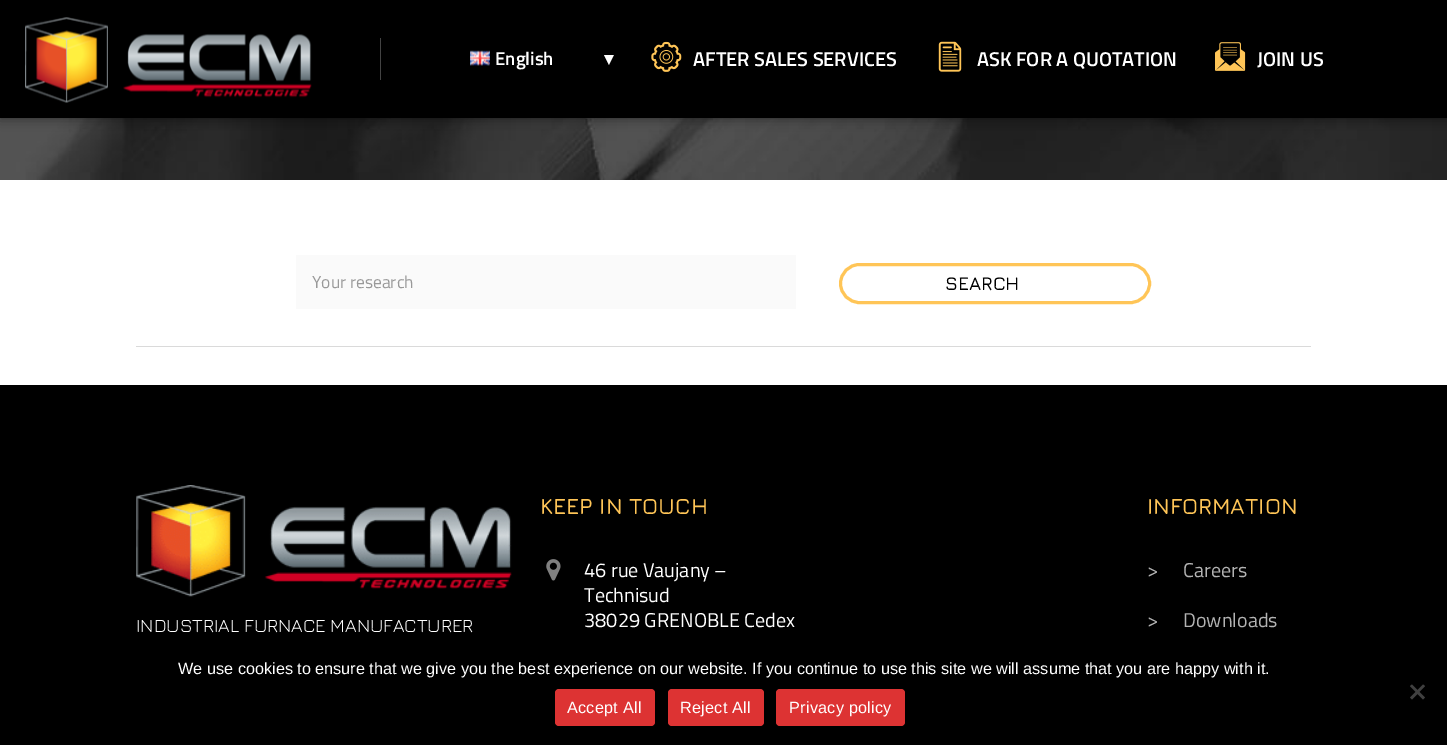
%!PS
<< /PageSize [1447 745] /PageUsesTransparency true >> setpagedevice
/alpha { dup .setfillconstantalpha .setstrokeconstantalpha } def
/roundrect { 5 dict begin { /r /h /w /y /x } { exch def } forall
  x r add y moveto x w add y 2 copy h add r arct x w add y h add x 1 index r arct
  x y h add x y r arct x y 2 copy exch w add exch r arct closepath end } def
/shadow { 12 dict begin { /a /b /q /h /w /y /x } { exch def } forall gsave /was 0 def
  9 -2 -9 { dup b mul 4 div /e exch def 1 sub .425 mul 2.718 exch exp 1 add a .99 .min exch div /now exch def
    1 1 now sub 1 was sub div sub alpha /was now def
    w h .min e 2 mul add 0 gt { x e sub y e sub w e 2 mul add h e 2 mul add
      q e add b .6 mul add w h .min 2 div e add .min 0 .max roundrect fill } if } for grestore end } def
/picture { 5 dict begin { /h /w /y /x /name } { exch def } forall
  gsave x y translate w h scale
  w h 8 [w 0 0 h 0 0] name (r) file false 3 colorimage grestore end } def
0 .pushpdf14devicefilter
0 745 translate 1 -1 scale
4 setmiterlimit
1 setgray
0 0 1447 745 rectfill
(img6.rgb) 0 118 1447 62 picture
0 setgray
0 0 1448 118 0 6 0.5 shadow
0 0 1447 118 rectfill
(img1.rgb) 25 17 287 86 picture
0.263 setgray
380 38 1 42 rectfill
(img2.rgb) 470 50 20 16 picture
/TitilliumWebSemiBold-SemiBold [18.75 0 0 -18.75 0 0] selectfont
1 setgray
495 65 moveto (English) show
/DejaVuSans-Bold [18.75 0 0 -18.75 0 0] selectfont
604 65 moveto (▾) show
(img3.rgb) 651 41 31 31 picture
/TitilliumWebSemiBold-SemiBold [20 0 0 -20 0 0] selectfont
693 66 moveto (AFTER SALES SERVICES) show
(img4.rgb) 938 41 24 31 picture
977 66 moveto (ASK FOR A QUOTATION) show
(img5.rgb) 1215 42 31 29 picture
1257 66 moveto (JOIN US) show
0.98 setgray
296 255 500 54 rectfill
/TitilliumWeb-Regular [17.5 0 0 -17.5 0 0] selectfont
0.6 setgray
312 288 moveto (Your research) show
1 0.773 0.341 setrgbcolor
3 setlinewidth
840.5 264.5 309 38 19 roundrect stroke
/Jura-SemiBold [18.75 0 0 -18.75 0 0] selectfont
0 setgray
945 290 moveto (SEARCH) show
0.855 setgray
136 346 1175 1 rectfill
0 setgray
0 385 1447 360 rectfill
(img7.rgb) 136 485 376 112 picture
/Jura-Regular [18.75 0 0 -18.75 0 0] selectfont
1 setgray
136 632 moveto (INDUSTRIAL FURNACE MANUFACTURER) show
/Jura-SemiBold [22.5 0 0 -22.5 0 0] selectfont
1 0.773 0.341 setrgbcolor
540 514 moveto (KEEP IN TOUCH) show
(img8.rgb) 546 559 15 22 picture
/TitilliumWeb-Regular [20 0 0 -20 0 0] selectfont
1 setgray
584 577 moveto (46 rue Vaujany –) show
584 602 moveto (Technisud) show
584 627 moveto (38029 GRENOBLE Cedex) show
/Jura-SemiBold [22.5 0 0 -22.5 0 0] selectfont
1 0.773 0.341 setrgbcolor
1147 514 moveto (INFORMATION) show
/TitilliumWeb-Regular [20 0 0 -20 0 0] selectfont
0.702 setgray
1147 577 moveto (>) show
1183 577 moveto (Careers) show
1147 627 moveto (>) show
1183 627 moveto (Downloads) show
/LiberationSans-Regular [16.25 0 0 -16.25 0 0] selectfont
1 setgray
178 674 moveto (We use cookies to ensure that we give you the best experience on our website. If you continue to use this site we will assume that you are happy with it.) show
0.251 setgray
newpath 1423 684.5 moveto 1425 686 lineto 1412 699.5 lineto 1410 697.5 lineto closepath fill
newpath 1410 686 moveto 1412 684.5 lineto 1425 697.5 lineto 1423 699.5 lineto closepath fill
0.867 0.2 0.2 setrgbcolor
555 689 100 37 4 roundrect fill
1 setgray
567 713 moveto 0.25 0 (Accept All) ashow
0.867 0.2 0.2 setrgbcolor
668 689 96 37 4 roundrect fill
1 setgray
680 713 moveto 0.25 0 (Reject All) ashow
0.867 0.2 0.2 setrgbcolor
776 689 129 37 4 roundrect fill
1 setgray
789 713 moveto 0.25 0 (Privacy policy) ashow
.poppdf14devicefilter showpage
